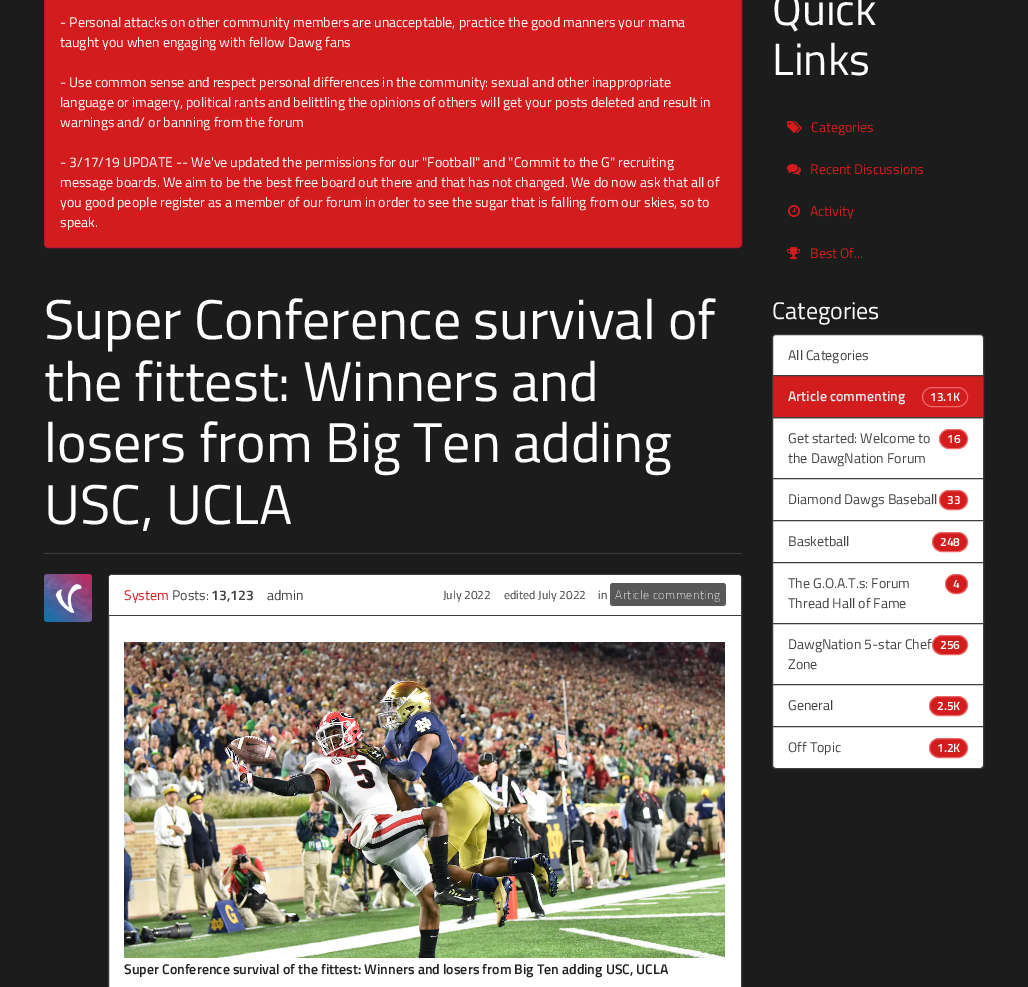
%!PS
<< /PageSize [1028 987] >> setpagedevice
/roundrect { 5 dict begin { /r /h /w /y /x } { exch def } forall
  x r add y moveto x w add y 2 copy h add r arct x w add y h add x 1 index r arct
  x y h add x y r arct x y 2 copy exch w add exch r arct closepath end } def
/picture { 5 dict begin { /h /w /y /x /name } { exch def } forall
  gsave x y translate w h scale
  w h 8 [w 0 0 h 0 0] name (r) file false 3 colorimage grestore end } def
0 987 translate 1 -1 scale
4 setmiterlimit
0.11 setgray
0 0 1028 987 rectfill
0.827 0.11 0.118 setrgbcolor
44.5 -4.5 697 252 3.5 roundrect gsave fill grestore
0.702 0.094 0.2 setrgbcolor
stroke
/TitilliumWeb-Regular [14 0 0 -14 0 0] selectfont
1 setgray
60 27 moveto (- Personal attacks on other community members are unacceptable, practice the good manners your mama) show
60 47 moveto (taught you when engaging with fellow Dawg fans) show
60 87 moveto (- Use common sense and respect personal differences in the community: sexual and other inappropriate) show
60 107 moveto (language or imagery, political rants and belittling the opinions of others will get your posts deleted and result in) show
60 127 moveto (warnings and/ or banning from the forum) show
60 167 moveto (- 3/17/19 UPDATE -- We've updated the permissions for our "Football" and "Commit to the G" recruiting) show
60 187 moveto (message boards. We aim to be the best free board out there and that has not changed. We do now ask that all of) show
60 207 moveto (you good people register as a member of our forum in order to see the sugar that is falling from our skies, so to) show
60 227 moveto (speak.) show
0.243 setgray
44 553 698 1 rectfill
/TitilliumWeb-Regular [56 0 0 -56 0 0] selectfont
1 setgray
44 339 moveto (Super Conference survival of) show
44 401 moveto (the fittest: Winners and) show
44 462 moveto (losers from Big Ten adding) show
44 524 moveto (USC, UCLA) show
108.5 574.5 633 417 3.5 roundrect gsave fill grestore
0.243 setgray
stroke
1 setgray
newpath 112 575 moveto 738 575 lineto 739.5 575 741 576.5 741 578 curveto 741 616 lineto 109 616 lineto 109 578 lineto 109 576.5 110.5 575 112 575 curveto closepath fill
0.243 setgray
109 615 632 1 rectfill
(img1.rgb) 44 574 48 48 picture
/TitilliumWeb-Regular [14 0 0 -14 0 0] selectfont
0.827 0.11 0.118 setrgbcolor
124 600 moveto (System) show
0.267 setgray
172 600 moveto (Posts:) show
/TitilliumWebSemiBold-SemiBold [14 0 0 -14 0 0] selectfont
211 600 moveto (13,123) show
/TitilliumWeb-Regular [14 0 0 -14 0 0] selectfont
267 600 moveto (admin) show
/TitilliumWeb-Regular [12 0 0 -12 0 0] selectfont
443 599 moveto (July 2022) show
504 599 moveto (edited July 2022) show
598 599 moveto (in) show
0.345 setgray
610 583 116 23 3 roundrect fill
/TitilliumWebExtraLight-ExtraLight [12 0 0 -12 0 0] selectfont
1 setgray
615 599 moveto 0.5 0 (Article commenting) ashow
(img2.rgb) 124 642 601 316 picture
/TitilliumWebSemiBold-SemiBold [14 0 0 -14 0 0] selectfont
0.133 setgray
124 974 moveto (Super Conference survival of the fittest: Winners and losers from Big Ten adding USC, UCLA) show
/TitilliumWeb-Regular [45 0 0 -45 0 0] selectfont
1 setgray
772 25 moveto (Quick) show
772 75 moveto (Links) show
(img3.rgb) 787 121 15 12 picture
/TitilliumWeb-Regular [14 0 0 -14 0 0] selectfont
0.827 0.11 0.118 setrgbcolor
811 132 moveto (Categories) show
(img4.rgb) 787 164 14 11 picture
810 174 moveto (Recent Discussions) show
(img5.rgb) 788 205 12 12 picture
810 216 moveto (Activity) show
(img6.rgb) 787 247 13 12 picture
810 258 moveto (Best Of...) show
/TitilliumWeb-Regular [24 0 0 -24 0 0] selectfont
1 setgray
772 319 moveto (Categories) show
newpath 776 334.5 moveto 980 334.5 lineto 982 334.5 983.5 336 983.5 338 curveto 983.5 375.5 lineto 772.5 375.5 lineto 772.5 338 lineto 772.5 336 774 334.5 776 334.5 curveto closepath gsave fill grestore
0.243 setgray
stroke
/TitilliumWeb-Regular [14 0 0 -14 0 0] selectfont
0.267 setgray
788 360 moveto (All Categories) show
1 setgray
newpath 772.5 417.5 moveto 983.5 417.5 lineto 983.5 478.5 lineto 772.5 478.5 lineto closepath gsave fill grestore
0.243 setgray
stroke
0.827 0.11 0.118 setrgbcolor
newpath 772.5 375.5 moveto 983.5 375.5 lineto 983.5 417.5 lineto 772.5 417.5 lineto closepath gsave fill grestore
0.243 setgray
stroke
/TitilliumWebSemiBold-SemiBold [14 0 0 -14 0 0] selectfont
0.902 setgray
788 401 moveto (Article commenting) show
0.922 0.416 0.42 setrgbcolor
922.5 387.5 45 19 9.5 roundrect stroke
/TitilliumWebSemiBold-SemiBold [12 0 0 -12 0 0] selectfont
1 setgray
930 401 moveto (13.1K) show
/TitilliumWeb-Regular [14 0 0 -14 0 0] selectfont
0.267 setgray
788 443 moveto (Get started: Welcome to) show
0.827 0.11 0.118 setrgbcolor
939.5 429.5 28 19 9.5 roundrect gsave fill grestore
0.922 0.416 0.42 setrgbcolor
stroke
/TitilliumWebSemiBold-SemiBold [12 0 0 -12 0 0] selectfont
1 setgray
947 443 moveto (16) show
/TitilliumWeb-Regular [14 0 0 -14 0 0] selectfont
0.267 setgray
788 463 moveto (the DawgNation Forum) show
1 setgray
newpath 772.5 478.5 moveto 983.5 478.5 lineto 983.5 520.5 lineto 772.5 520.5 lineto closepath gsave fill grestore
0.243 setgray
stroke
0.267 setgray
788 504 moveto (Diamond Dawgs Baseball) show
0.827 0.11 0.118 setrgbcolor
939.5 490.5 28 19 9.5 roundrect gsave fill grestore
0.922 0.416 0.42 setrgbcolor
stroke
/TitilliumWebSemiBold-SemiBold [12 0 0 -12 0 0] selectfont
1 setgray
947 504 moveto (33) show
newpath 772.5 520.5 moveto 983.5 520.5 lineto 983.5 562.5 lineto 772.5 562.5 lineto closepath gsave fill grestore
0.243 setgray
stroke
/TitilliumWeb-Regular [14 0 0 -14 0 0] selectfont
0.267 setgray
788 546 moveto (Basketball) show
0.827 0.11 0.118 setrgbcolor
932.5 532.5 35 19 9.5 roundrect gsave fill grestore
0.922 0.416 0.42 setrgbcolor
stroke
/TitilliumWebSemiBold-SemiBold [12 0 0 -12 0 0] selectfont
1 setgray
940 546 moveto (248) show
newpath 772.5 562.5 moveto 983.5 562.5 lineto 983.5 623.5 lineto 772.5 623.5 lineto closepath gsave fill grestore
0.243 setgray
stroke
/TitilliumWeb-Regular [14 0 0 -14 0 0] selectfont
0.267 setgray
788 588 moveto (The G.O.A.T.s: Forum) show
0.827 0.11 0.118 setrgbcolor
945.5 574.5 22 19 9.5 roundrect gsave fill grestore
0.922 0.416 0.42 setrgbcolor
stroke
/TitilliumWebSemiBold-SemiBold [12 0 0 -12 0 0] selectfont
1 setgray
953 588 moveto (4) show
/TitilliumWeb-Regular [14 0 0 -14 0 0] selectfont
0.267 setgray
788 608 moveto (Thread Hall of Fame) show
1 setgray
newpath 772.5 623.5 moveto 983.5 623.5 lineto 983.5 684.5 lineto 772.5 684.5 lineto closepath gsave fill grestore
0.243 setgray
stroke
0.267 setgray
788 649 moveto (DawgNation 5-star Chef) show
0.827 0.11 0.118 setrgbcolor
932.5 635.5 35 19 9.5 roundrect gsave fill grestore
0.922 0.416 0.42 setrgbcolor
stroke
/TitilliumWebSemiBold-SemiBold [12 0 0 -12 0 0] selectfont
1 setgray
940 649 moveto (256) show
/TitilliumWeb-Regular [14 0 0 -14 0 0] selectfont
0.267 setgray
788 669 moveto (Zone) show
1 setgray
newpath 772.5 684.5 moveto 983.5 684.5 lineto 983.5 726.5 lineto 772.5 726.5 lineto closepath gsave fill grestore
0.243 setgray
stroke
0.267 setgray
788 710 moveto (General) show
0.827 0.11 0.118 setrgbcolor
929.5 696.5 38 19 9.5 roundrect gsave fill grestore
0.922 0.416 0.42 setrgbcolor
stroke
/TitilliumWebSemiBold-SemiBold [12 0 0 -12 0 0] selectfont
1 setgray
937 710 moveto (2.5K) show
newpath 772.5 726.5 moveto 983.5 726.5 lineto 983.5 765 lineto 983.5 767 982 768.5 980 768.5 curveto 776 768.5 lineto 774 768.5 772.5 767 772.5 765 curveto closepath gsave fill grestore
0.243 setgray
stroke
/TitilliumWeb-Regular [14 0 0 -14 0 0] selectfont
0.267 setgray
788 752 moveto (Off Topic) show
0.827 0.11 0.118 setrgbcolor
929.5 738.5 38 19 9.5 roundrect gsave fill grestore
0.922 0.416 0.42 setrgbcolor
stroke
/TitilliumWebSemiBold-SemiBold [12 0 0 -12 0 0] selectfont
1 setgray
937 752 moveto (1.2K) show
showpage
